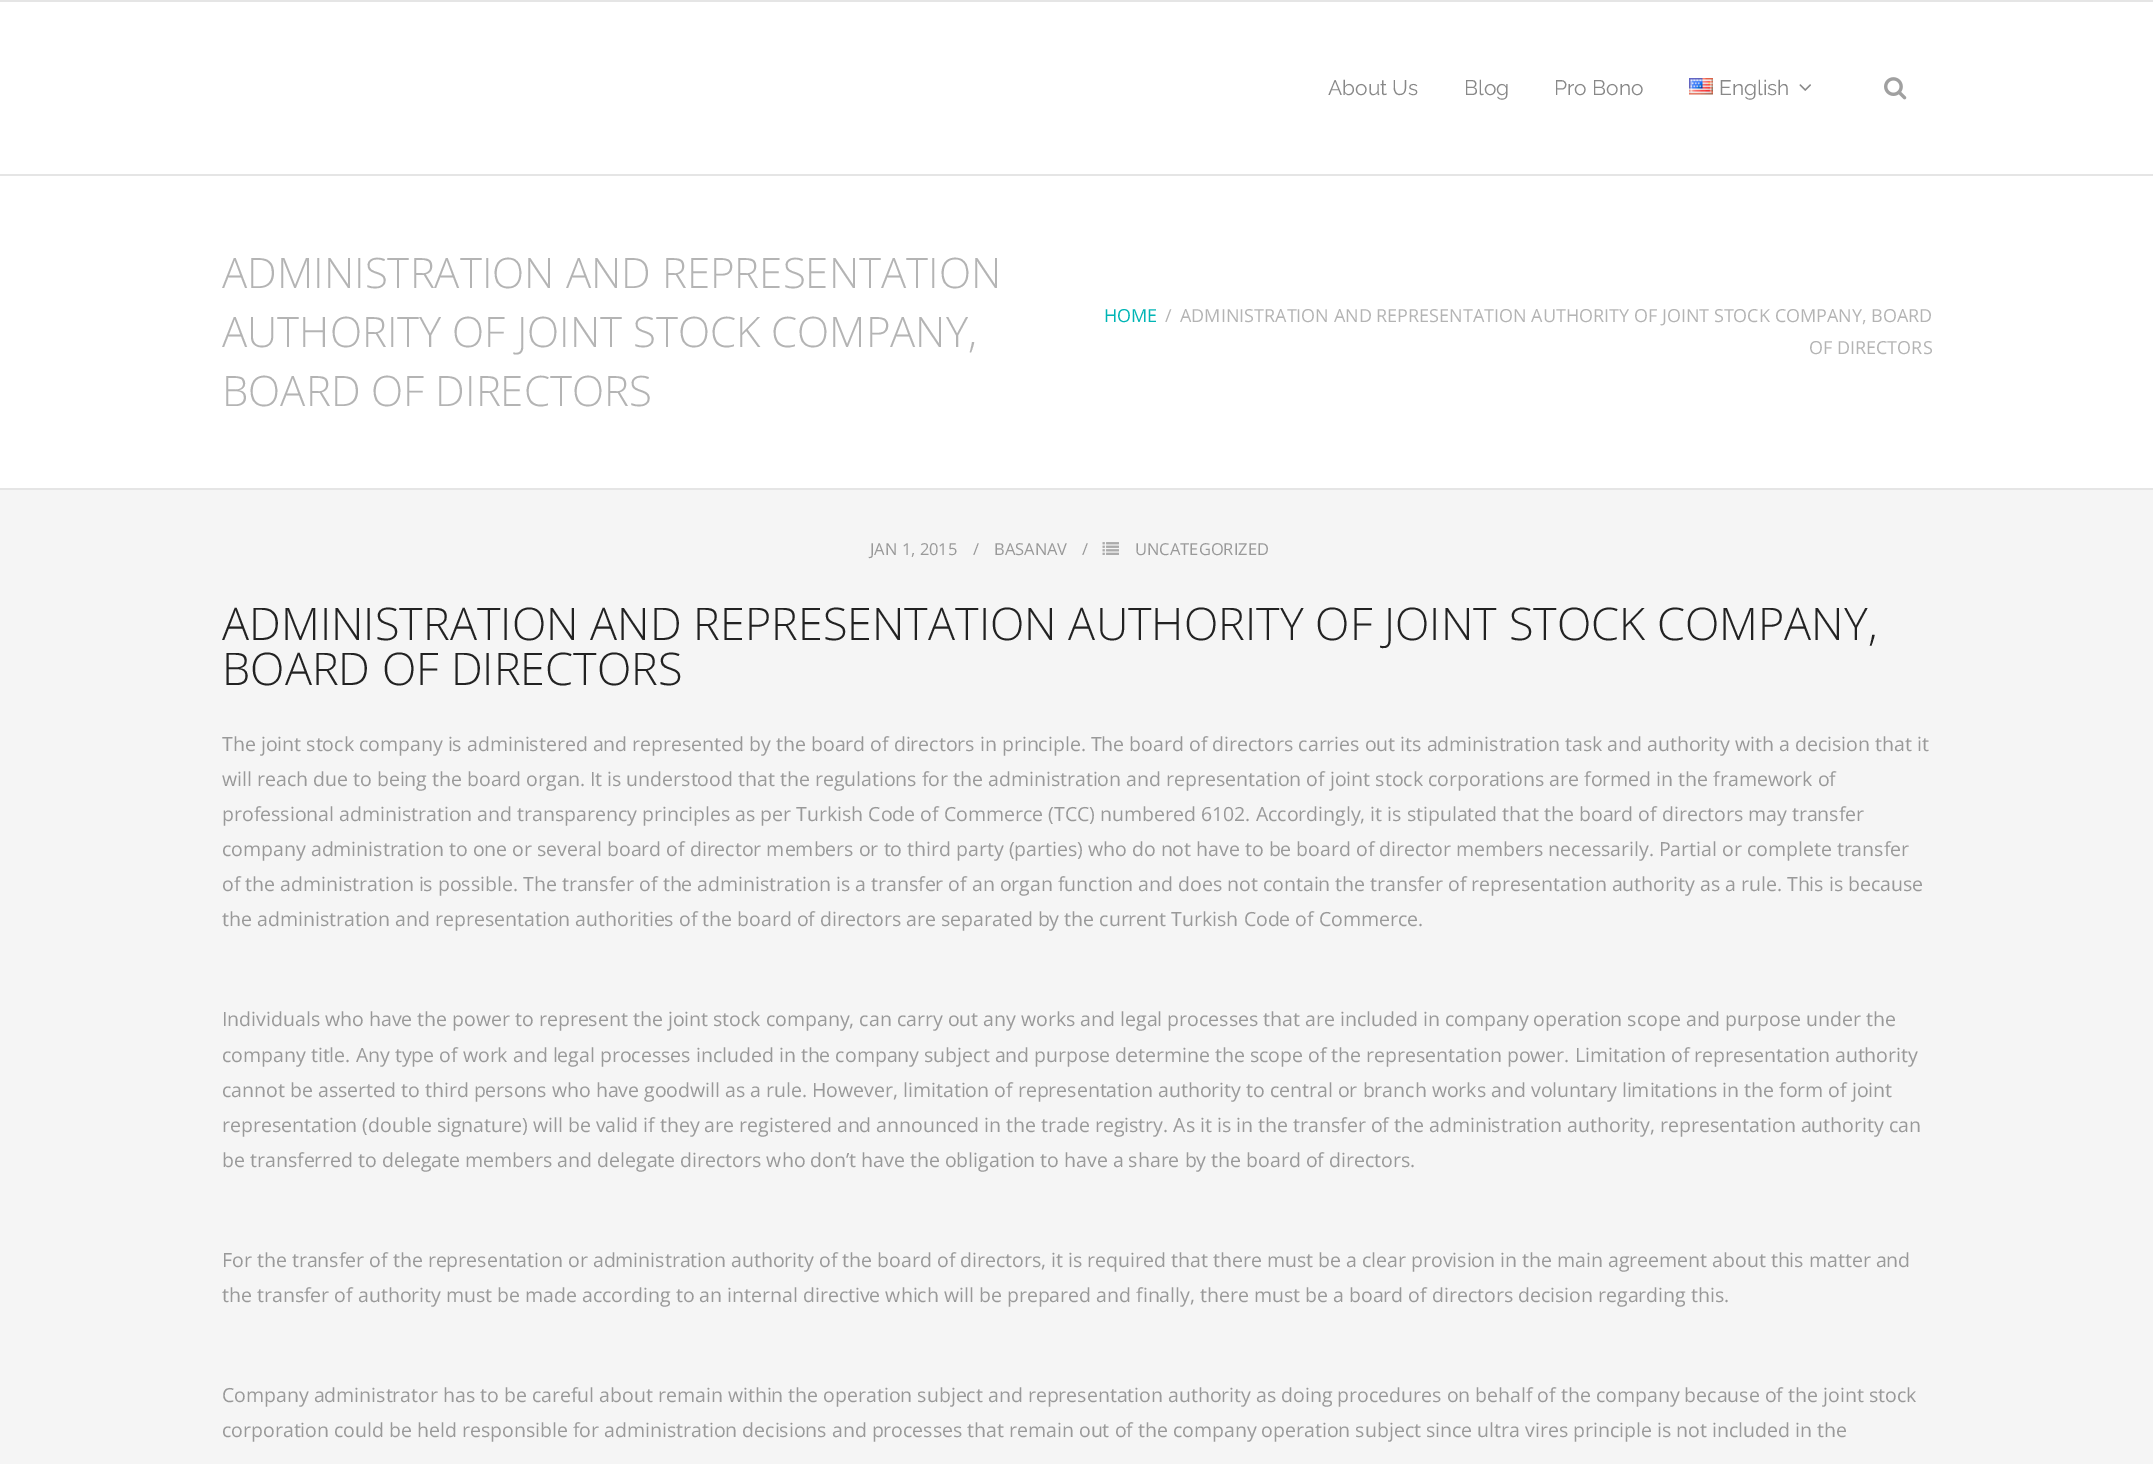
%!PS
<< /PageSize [2153 1464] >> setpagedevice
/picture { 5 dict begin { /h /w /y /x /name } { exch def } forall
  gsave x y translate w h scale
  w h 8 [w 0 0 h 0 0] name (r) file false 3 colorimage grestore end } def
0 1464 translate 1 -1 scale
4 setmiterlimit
0.961 setgray
0 0 2153 1464 rectfill
0.898 setgray
0 0 2153 2 rectfill
1 setgray
0 2 2153 172 rectfill
0.898 setgray
0 174 2153 2 rectfill
/Raleway-Regular [21 0 0 -21 0 0] selectfont
0.533 setgray
1328 95 moveto (About Us) show
1464 95 moveto (Blog) show
1554 95 moveto (Pro Bono) show
(img1.rgb) 1689 78 24 17 picture
1719 95 moveto (English) show
(img2.rgb) 1799 84 12 7 picture
(img3.rgb) 1884 77 23 23 picture
1 setgray
0 176 2153 312 rectfill
0.898 setgray
0 488 2153 2 rectfill
/OpenSans-Light [42 0 0 -42 0 0] selectfont
0.706 setgray
222 288 moveto (ADMINISTRATION AND REPRESENTATION) show
222 347 moveto (AUTHORITY OF JOINT STOCK COMPANY,) show
222 406 moveto (BOARD OF DIRECTORS) show
/OpenSans-Regular [18 0 0 -18 0 0] selectfont
0 0.71 0.71 setrgbcolor
1104 322 moveto (HOME) show
0.706 setgray
1165 322 moveto (/) show
1180 322 moveto (ADMINISTRATION AND REPRESENTATION AUTHORITY OF JOINT STOCK COMPANY, BOARD) show
1809 354 moveto (OF DIRECTORS) show
/OpenSans-Regular [16.5 0 0 -16.5 0 0] selectfont
0.6 setgray
870 555 moveto (JAN 1, 2015) show
973 555 moveto (/) show
994 555 moveto (BASANAV) show
1082 555 moveto (/) show
(img4.rgb) 1102 542 17 13 picture
1135 555 moveto (UNCATEGORIZED) show
/OpenSans-Light [45 0 0 -45 0 0] selectfont
0.133 setgray
222 640 moveto (ADMINISTRATION AND REPRESENTATION AUTHORITY OF JOINT STOCK COMPANY,) show
222 685 moveto (BOARD OF DIRECTORS) show
/OpenSans-Regular [19.5 0 0 -19.5 0 0] selectfont
0.6 setgray
222 751 moveto (The joint stock company is administered and represented by the board of directors in principle. The board of directors carries out its administration task and authority with a decision that it) show
222 786 moveto (will reach due to being the board organ. It is understood that the regulations for the administration and representation of joint stock corporations are formed in the framework of) show
222 821 moveto (professional administration and transparency principles as per Turkish Code of Commerce \(TCC\) numbered 6102. Accordingly, it is stipulated that the board of directors may transfer) show
222 856 moveto (company administration to one or several board of director members or to third party \(parties\) who do not have to be board of director members necessarily. Partial or complete transfer) show
222 891 moveto (of the administration is possible. The transfer of the administration is a transfer of an organ function and does not contain the transfer of representation authority as a rule. This is because) show
222 926 moveto (the administration and representation authorities of the board of directors are separated by the current Turkish Code of Commerce.) show
222 1026 moveto (Individuals who have the power to represent the joint stock company, can carry out any works and legal processes that are included in company operation scope and purpose under the) show
222 1062 moveto (company title. Any type of work and legal processes included in the company subject and purpose determine the scope of the representation power. Limitation of representation authority) show
222 1097 moveto (cannot be asserted to third persons who have goodwill as a rule. However, limitation of representation authority to central or branch works and voluntary limitations in the form of joint) show
222 1132 moveto (representation \(double signature\) will be valid if they are registered and announced in the trade registry. As it is in the transfer of the administration authority, representation authority can) show
222 1167 moveto (be transferred to delegate members and delegate directors who don’t have the obligation to have a share by the board of directors.) show
222 1267 moveto (For the transfer of the representation or administration authority of the board of directors, it is required that there must be a clear provision in the main agreement about this matter and) show
222 1302 moveto (the transfer of authority must be made according to an internal directive which will be prepared and finally, there must be a board of directors decision regarding this.) show
222 1402 moveto (Company administrator has to be careful about remain within the operation subject and representation authority as doing procedures on behalf of the company because of the joint stock) show
222 1437 moveto (corporation could be held responsible for administration decisions and processes that remain out of the company operation subject since ultra vires principle is not included in the) show
showpage
